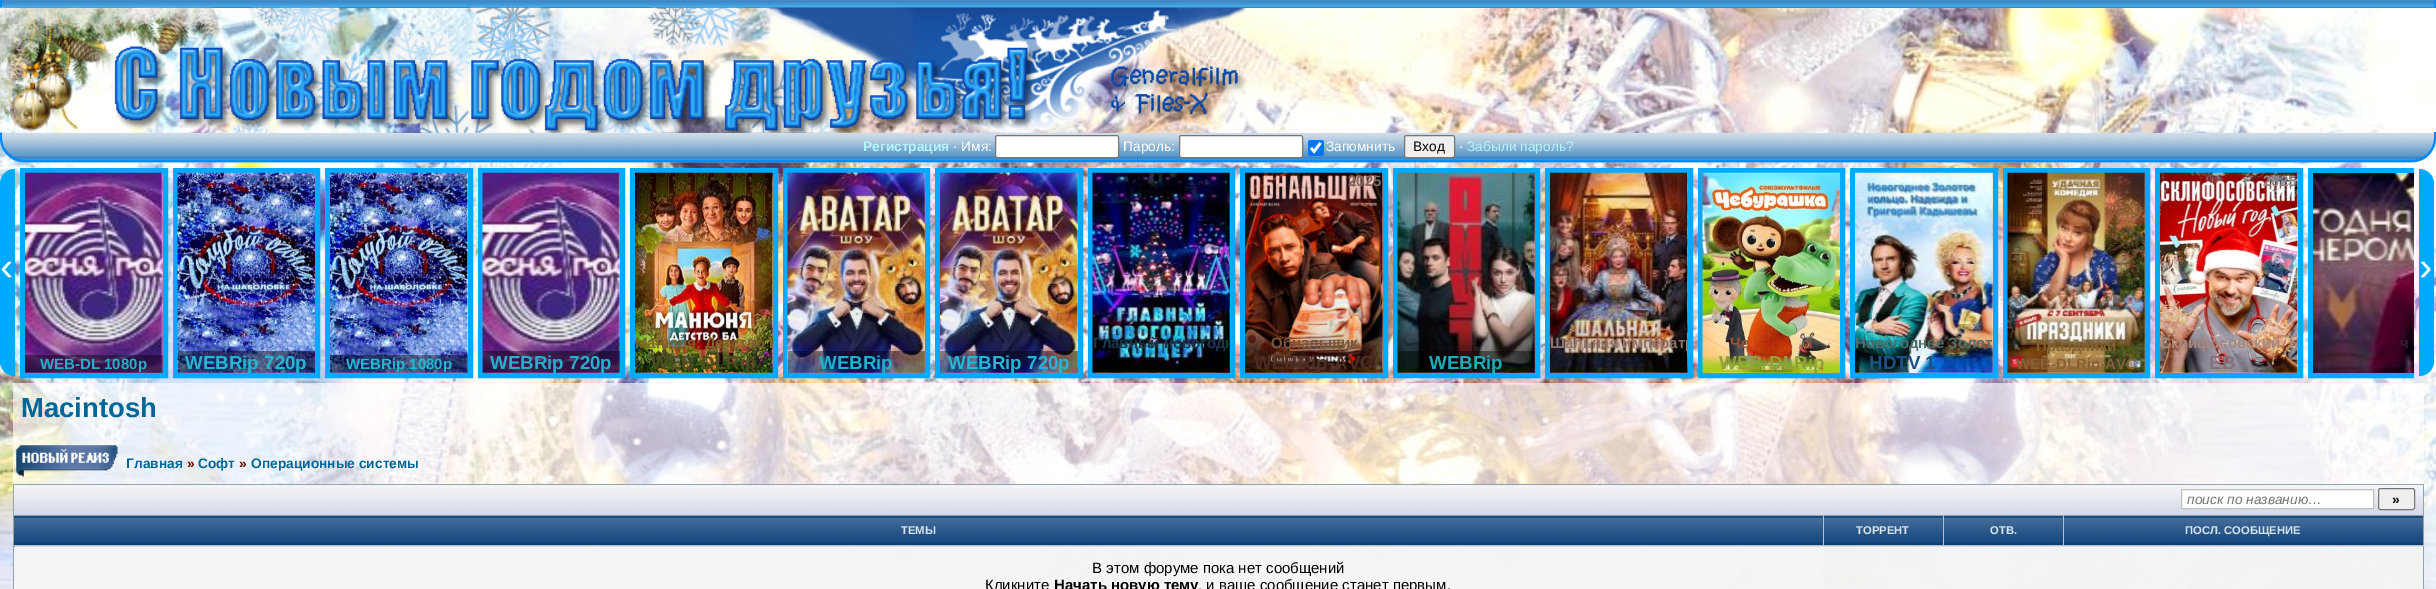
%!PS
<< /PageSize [2436 589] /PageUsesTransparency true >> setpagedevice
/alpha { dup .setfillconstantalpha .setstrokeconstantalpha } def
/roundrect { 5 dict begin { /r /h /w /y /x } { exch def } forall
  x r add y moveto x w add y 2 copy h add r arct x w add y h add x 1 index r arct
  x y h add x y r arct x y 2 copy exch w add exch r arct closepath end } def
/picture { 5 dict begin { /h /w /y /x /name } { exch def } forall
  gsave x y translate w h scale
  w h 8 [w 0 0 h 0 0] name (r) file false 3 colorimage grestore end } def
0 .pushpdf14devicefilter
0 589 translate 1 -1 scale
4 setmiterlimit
1 setgray
0 0 2436 589 rectfill
(img1.rgb) 0 7 2436 582 picture
0 0.4 0.6 setrgbcolor
3 7 2431 1 rectfill
(img2.rgb) 2 0 2432 8 picture
0 0.545 1 setrgbcolor
newpath 22 -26 moveto 2414 -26 lineto 2426 -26 2436 -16 2436 -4 curveto 2436 8 lineto 0 8 lineto 0 -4 lineto 0 -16 10 -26 22 -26 curveto closepath 22 -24 moveto 2414 -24 lineto 2425 -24 2434 -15 2434 -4 curveto 2434 8 lineto 2 8 lineto 2 -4 lineto 2 -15 11 -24 22 -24 curveto closepath eofill
(img4.rgb) 0 132 2436 31 picture
newpath 0 132 moveto 2436 132 lineto 2436 138 lineto 2436 151 2425 162 2411 162 curveto 25 162 lineto 11 162 0 151 0 138 curveto closepath 2 132 moveto 2434 132 lineto 2434 138 lineto 2434 150 2424 160 2411 160 curveto 25 160 lineto 13 160 2 150 2 138 curveto closepath eofill
(img3.rgb) 0 7 1247 126 picture
/LiberationSans-Bold [13.75 0 0 -13.75 0 0] selectfont
0.694 0.965 1 setrgbcolor
863 151 moveto (Регистрация) show
/LiberationSans-Regular [13.75 0 0 -13.75 0 0] selectfont
1 setgray
953 151 moveto (· Имя:) show
995.5 135.5 123 22 2 roundrect gsave fill grestore
0.463 setgray
stroke
1 setgray
1123 151 moveto (Пароль:) show
1179.5 135.5 123 22 2 roundrect gsave fill grestore
0.463 setgray
stroke
0 0.459 1 setrgbcolor
1308 140 16 16 2.5 roundrect fill
1 setgray
2.6 setlinewidth
newpath 1311 148 moveto 1314 151.5 lineto 1320.5 143 lineto stroke
1326 151 moveto (Запомнить) show
0.937 setgray
1404.5 135.5 50 22 2 roundrect gsave fill grestore
0.463 setgray
1 setlinewidth
stroke
0 setgray
1413 151 moveto (Вход) show
1 setgray
1459 151 moveto (·) show
0.694 0.965 1 setrgbcolor
1467 151 moveto (Забыли пароль?) show
0 0.667 1 setrgbcolor
newpath 15 169 moveto 15 376 lineto 6.5 376 0 369.5 0 361 curveto 0 184 lineto 0 175.5 6.5 169 15 169 curveto closepath fill
/LiberationSans-Regular [40 0 0 -40 0 0] selectfont
1 setgray
0 280 moveto (‹) show
0 0.667 1 setrgbcolor
5 setlinewidth
175.5 170.5 142 205 rectstroke
(img5.rgb) 177 172 138 201 picture
/LiberationSans-Bold [15 0 0 -15 0 0] selectfont
0.275 0.329 0.604 setrgbcolor
242 186 moveto (2025-2026) show
0.42 alpha
0 setgray
178 351 137 22 rectfill
/LiberationSans-Bold [18.75 0 0 -18.75 0 0] selectfont
1 alpha
0.141 0.718 0.827 setrgbcolor
185 369 moveto (WEBRip 720p) show
0 0.667 1 setrgbcolor
327.5 170.5 143 205 rectstroke
(img6.rgb) 330 172 138 201 picture
/LiberationSans-Bold [15 0 0 -15 0 0] selectfont
0.275 0.329 0.604 setrgbcolor
395 186 moveto (2025-2026) show
0.42 alpha
0 setgray
330 355 138 18 rectfill
1 alpha
0.141 0.718 0.827 setrgbcolor
346 369 moveto (WEBRip 1080p) show
0 0.667 1 setrgbcolor
632.5 170.5 143 205 rectstroke
(img7.rgb) 635 172 138 201 picture
gsave
635 173 138 200 rectclip
0.486 0.388 0.176 setrgbcolor
635 348 moveto (Манюня: Детство Б) show
grestore
/LiberationSans-Bold [18.75 0 0 -18.75 0 0] selectfont
0.302 0.306 0.125 setrgbcolor
651 369 moveto (WEB-DLRip) show
0 0.667 1 setrgbcolor
1090.5 170.5 142 205 rectstroke
(img8.rgb) 1092 172 138 201 picture
gsave
1093 173 137 200 rectclip
/LiberationSans-Bold [15 0 0 -15 0 0] selectfont
0.106 0.216 0.29 setrgbcolor
1093 348 moveto (Главный новогодн) show
grestore
1242.5 170.5 143 205 rectstroke
(img9.rgb) 1245 172 138 201 picture
/LiberationSans-Bold [15 0 0 -15 0 0] selectfont
0.525 0.4 0.38 setrgbcolor
1348 186 moveto (2025) show
0.478 0.333 0.251 setrgbcolor
1271 348 moveto (Обнальщик) show
/LiberationSans-Bold [18.75 0 0 -18.75 0 0] selectfont
0.302 0.18 0.141 setrgbcolor
1254 369 moveto (WEBRip-AVC) show
0 0.667 1 setrgbcolor
1547.5 170.5 143 205 rectstroke
(img10.rgb) 1550 172 138 201 picture
gsave
1550 173 138 200 rectclip
/LiberationSans-Bold [15 0 0 -15 0 0] selectfont
0.569 0.467 0.416 setrgbcolor
1550 348 moveto (Шальная императр) show
grestore
1700.5 170.5 142 205 rectstroke
(img11.rgb) 1702 172 138 201 picture
/LiberationSans-Bold [15 0 0 -15 0 0] selectfont
0.643 0.322 0.196 setrgbcolor
1730 348 moveto (Че) show
1804 348 moveto (а) show
/LiberationSans-Bold [18.75 0 0 -18.75 0 0] selectfont
0.584 0.627 0.235 setrgbcolor
1719 369 moveto (WEB-DLRip) show
0 0.667 1 setrgbcolor
1852.5 170.5 143 205 rectstroke
(img12.rgb) 1855 172 138 201 picture
/LiberationSans-Bold [15 0 0 -15 0 0] selectfont
0.322 0.431 0.408 setrgbcolor
1855 348 moveto (Новогоднее Золот) show
/LiberationSans-Bold [18.75 0 0 -18.75 0 0] selectfont
0.118 0.318 0.522 setrgbcolor
1869 369 moveto (HDTV 1) show
0 0.667 1 setrgbcolor
2005.5 170.5 142 205 rectstroke
(img13.rgb) 2007 172 138 201 picture
/LiberationSans-Bold [15 0 0 -15 0 0] selectfont
0.51 0.384 0.192 setrgbcolor
2036 351 moveto (Праздники) show
0.529 0.38 0.216 setrgbcolor
2016 369 moveto (WEB-DLRip-AVC) show
0 0.667 1 setrgbcolor
2157.5 170.5 143 205 rectstroke
(img14.rgb) 2160 172 138 201 picture
0.596 0.525 0.533 setrgbcolor
2263 186 moveto (2025) show
gsave
2160 173 138 200 rectclip
0.659 0.529 0.486 setrgbcolor
2160 348 moveto (Склифосовский. Н) show
grestore
/LiberationSans-Bold [18.75 0 0 -18.75 0 0] selectfont
0.506 0.451 0.49 setrgbcolor
2209 369 moveto (EB) show
gsave
20 168 2394 237 rectclip
0 0.667 1 setrgbcolor
2310.5 170.5 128 205 rectstroke
grestore
(img15.rgb) 2313 173 101 200 picture
/LiberationSans-Bold [15 0 0 -15 0 0] selectfont
0.231 0.09 0.2 setrgbcolor
2400 348 moveto (ч) show
0 0.667 1 setrgbcolor
22.5 170.5 143 205 rectstroke
(img16.rgb) 25 172 138 201 picture
0.42 alpha
0 setgray
25 355 138 18 rectfill
1 alpha
0.161 0.678 0.788 setrgbcolor
40 369 moveto (WEB-DL 1080p) show
0 0.667 1 setrgbcolor
480.5 170.5 142 205 rectstroke
(img17.rgb) 482 172 138 201 picture
0.42 alpha
0 setgray
483 351 137 22 rectfill
/LiberationSans-Bold [18.75 0 0 -18.75 0 0] selectfont
1 alpha
0.161 0.678 0.788 setrgbcolor
490 369 moveto (WEBRip 720p) show
0 0.667 1 setrgbcolor
785.5 170.5 142 205 rectstroke
(img18.rgb) 787 172 138 201 picture
0.42 alpha
0 setgray
788 351 137 22 rectfill
1 alpha
0.125 0.694 0.796 setrgbcolor
819 369 moveto (WEBRip) show
0 0.667 1 setrgbcolor
937.5 170.5 143 205 rectstroke
(img19.rgb) 940 172 138 201 picture
0.42 alpha
0 setgray
940 351 138 22 rectfill
1 alpha
0.141 0.718 0.827 setrgbcolor
948 369 moveto (WEBRip 720p) show
0 0.667 1 setrgbcolor
1395.5 170.5 142 205 rectstroke
(img20.rgb) 1397 172 138 201 picture
0.42 alpha
0 setgray
1398 351 137 22 rectfill
1 alpha
0.114 0.671 0.718 setrgbcolor
1429 369 moveto (WEBRip) show
0 0.667 1 setrgbcolor
newpath 2419 169 moveto 2427.5 169 2434 175.5 2434 184 curveto 2434 361 lineto 2434 369.5 2427.5 376 2419 376 curveto closepath fill
/LiberationSans-Regular [40 0 0 -40 0 0] selectfont
1 setgray
2419 280 moveto (›) show
0.65 alpha
13 383 2411 206 rectfill
/LiberationSans-Bold [27.5 0 0 -27.5 0 0] selectfont
1 alpha
0 0.4 0.6 setrgbcolor
21 417 moveto (Macintosh) show
(img21.rgb) 16 445 102 32 picture
/LiberationSans-Bold [13.75 0 0 -13.75 0 0] selectfont
126 468 moveto (Главная) show
0.4 0 0 setrgbcolor
187 468 moveto (») show
0 0.4 0.6 setrgbcolor
198 468 moveto (Софт) show
0.4 0 0 setrgbcolor
239 468 moveto (») show
0 0.4 0.6 setrgbcolor
251 468 moveto (Операционные системы) show
(img22.rgb) 14 485 2409 30 picture
0.576 0.643 0.678 setrgbcolor
13 484 2411 1 rectfill
2423 484 1 32 rectfill
13 484 1 32 rectfill
1 setgray
newpath 2181.5 489.5 moveto 2373.5 489.5 lineto 2373.5 508.5 lineto 2181.5 508.5 lineto closepath gsave fill grestore
0.753 setgray
1 setlinewidth
stroke
/LiberationSans-Italic [13.75 0 0 -13.75 0 0] selectfont
0.459 setgray
2187 504 moveto (поиск по названию…) show
0.937 setgray
2378.5 488.5 36 21 2 roundrect gsave fill grestore
0.463 setgray
stroke
/LiberationSans-Bold [13.75 0 0 -13.75 0 0] selectfont
0 setgray
2392 504 moveto (») show
0.3 alpha
1 setgray
14 546 2409 43 rectfill
1 alpha
0.11 0.314 0.549 setrgbcolor
14 516 1809 29 rectfill
0.77 alpha
0.961 setgray
14 546 14 43 rectfill
28 546 1795 43 rectfill
1 alpha
(img23.rgb) 14 516 1809 31 picture
0.11 0.314 0.549 setrgbcolor
1824 516 119 29 rectfill
0.5 alpha
0.871 0.89 0.906 setrgbcolor
1823 546 120 43 rectfill
1 alpha
(img24.rgb) 1822 516 121 31 picture
0.11 0.314 0.549 setrgbcolor
1944 516 119 29 rectfill
0.5 alpha
0.871 0.89 0.906 setrgbcolor
1943 546 120 43 rectfill
1 alpha
(img25.rgb) 1942 516 121 31 picture
0.11 0.314 0.549 setrgbcolor
2064 516 359 1 rectfill
0.5 alpha
0.871 0.89 0.906 setrgbcolor
2063 546 360 43 rectfill
1 alpha
(img26.rgb) 2062 516 361 31 picture
0.573 0.639 0.643 setrgbcolor
13 515 2411 1 rectfill
0.576 0.643 0.678 setrgbcolor
2423 545 1 44 rectfill
0.573 0.639 0.643 setrgbcolor
2423 515 1 31 rectfill
0.718 0.753 0.773 setrgbcolor
2063 545 361 1 rectfill
2063 515 1 31 rectfill
1943 545 121 1 rectfill
1943 515 1 31 rectfill
1823 545 121 1 rectfill
1823 515 1 31 rectfill
0.576 0.643 0.678 setrgbcolor
13 545 1 44 rectfill
0.718 0.753 0.773 setrgbcolor
13 545 1811 1 rectfill
0.573 0.639 0.643 setrgbcolor
13 515 1 31 rectfill
/LiberationSans-Bold [11.25 0 0 -11.25 0 0] selectfont
0.835 0.894 0.925 setrgbcolor
901 534 moveto (ТЕМЫ) show
1856 534 moveto (ТОРРЕНТ) show
1990 534 moveto (ОТВ.) show
2185 534 moveto (ПОСЛ. СООБЩЕНИЕ) show
0.77 alpha
0.961 setgray
15 546 2408 43 rectfill
/LiberationSans-Regular [15 0 0 -15 0 0] selectfont
1 alpha
0 setgray
1092 573 moveto (В этом форуме пока нет сообщений) show
985 590 moveto (Кликните) show
/LiberationSans-Bold [15 0 0 -15 0 0] selectfont
1054 590 moveto (Начать новую тему) show
/LiberationSans-Regular [15 0 0 -15 0 0] selectfont
1198 590 moveto (, и ваше сообщение станет первым.) show
.poppdf14devicefilter showpage
